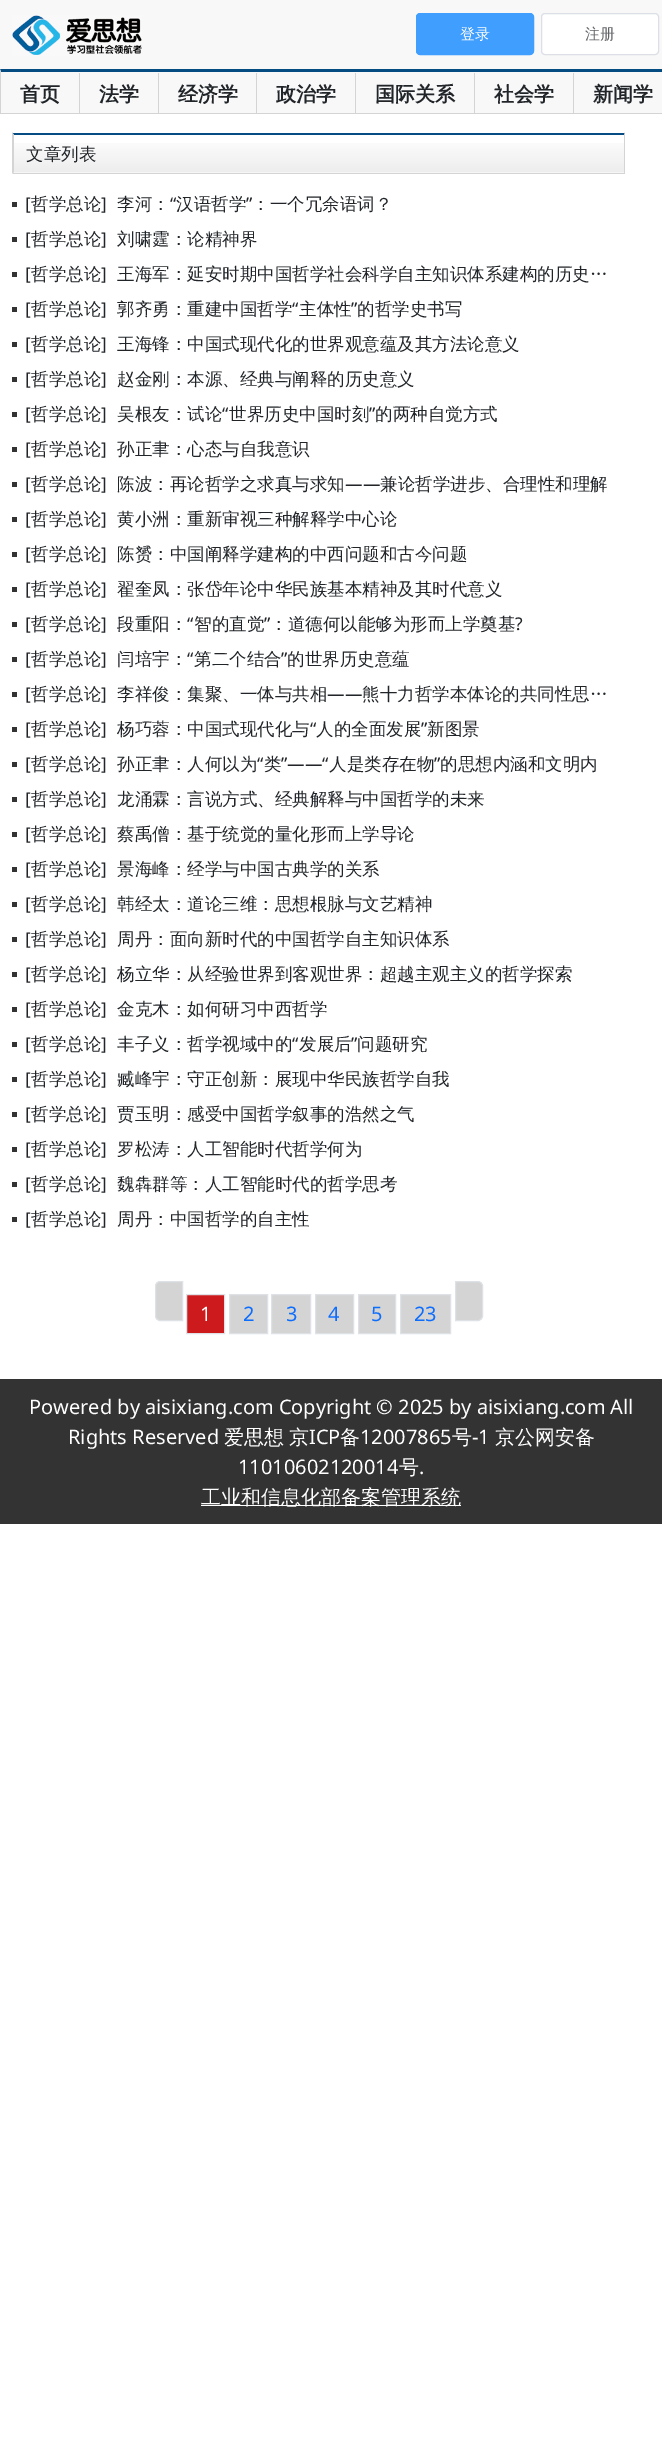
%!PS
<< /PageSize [662 2437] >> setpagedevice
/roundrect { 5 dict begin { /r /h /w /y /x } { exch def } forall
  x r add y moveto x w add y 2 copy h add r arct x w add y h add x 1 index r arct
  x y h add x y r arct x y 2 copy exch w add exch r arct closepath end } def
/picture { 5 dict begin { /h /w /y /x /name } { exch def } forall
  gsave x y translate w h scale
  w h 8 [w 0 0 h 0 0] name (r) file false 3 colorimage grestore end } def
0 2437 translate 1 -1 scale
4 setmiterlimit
1 setgray
0 0 662 2437 rectfill
0.973 setgray
0 0 662 113 rectfill
0.831 setgray
0 113 662 1 rectfill
(img1.rgb) 12 15 130 41 picture
0.251 0.62 1 setrgbcolor
416.5 13.5 117 41 3.5 roundrect gsave fill grestore
stroke
/WenQuanYiZenHei-Medium [15 0 0 -15 0 0] selectfont
1 setgray
460 39 moveto (登录) show
541.5 13.5 117 41 3.5 roundrect gsave fill grestore
0.863 0.875 0.902 setrgbcolor
stroke
0.376 0.384 0.4 setrgbcolor
585 39 moveto (注册) show
0.016 0.298 0.51 setrgbcolor
newpath 0 69 moveto 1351 69 lineto 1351 72 lineto 1 72 lineto closepath fill
gsave
0 69 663 44 rectclip
0.831 setgray
newpath 0 118 moveto 0 69 lineto 1 72 lineto 1 118 lineto closepath fill
grestore
0.831 setgray
79 73 1 40 rectfill
/WenQuanYiZenHei-Bold [20 0 0 -20 0 0] selectfont
0.129 0.145 0.161 setrgbcolor
20 101 moveto (首页) show
0.831 setgray
158 73 1 40 rectfill
0.129 0.145 0.161 setrgbcolor
99 101 moveto (法学) show
0.831 setgray
256 73 1 40 rectfill
0.129 0.145 0.161 setrgbcolor
178 101 moveto (经济学) show
0.831 setgray
355 73 1 40 rectfill
0.129 0.145 0.161 setrgbcolor
276 101 moveto (政治学) show
0.831 setgray
474 73 1 40 rectfill
0.129 0.145 0.161 setrgbcolor
375 101 moveto (国际关系) show
0.831 setgray
573 73 1 40 rectfill
0.129 0.145 0.161 setrgbcolor
494 101 moveto (社会学) show
593 101 moveto (新闻学) show
(img2.rgb) 13 143 612 30 picture
gsave
8 133 622 1221 rectclip
0.016 0.298 0.51 setrgbcolor
newpath 12 132 moveto 625 132 lineto 624 135 lineto 14 135 lineto closepath fill
grestore
0.831 setgray
newpath 625 132 moveto 625 174 lineto 624 172 lineto 624 135 lineto closepath fill
13 173 612 1 rectfill
newpath 12 174 moveto 12 132 lineto 14 135 lineto 14 172 lineto closepath fill
/WenQuanYiZenHei-Medium [17.5 0 0 -17.5 0 0] selectfont
0.129 0.145 0.161 setrgbcolor
26 160 moveto (文章列表) show
0.2 setgray
12 202 5 5 rectfill
/NotoSans-Regular [17.5 0 0 -17.5 0 0] selectfont
0.129 0.145 0.161 setrgbcolor
25 210 moveto ([) show
/WenQuanYiZenHei-Medium [17.5 0 0 -17.5 0 0] selectfont
31 210 moveto (哲学总论) show
/NotoSans-Regular [17.5 0 0 -17.5 0 0] selectfont
101 210 moveto (]) show
/WenQuanYiZenHei-Medium [17.5 0 0 -17.5 0 0] selectfont
117 210 moveto (李河：) show
/NotoSans-Regular [17.5 0 0 -17.5 0 0] selectfont
170 210 moveto (“) show
/WenQuanYiZenHei-Medium [17.5 0 0 -17.5 0 0] selectfont
176 210 moveto (汉语哲学) show
/NotoSans-Regular [17.5 0 0 -17.5 0 0] selectfont
246 210 moveto (”) show
/WenQuanYiZenHei-Medium [17.5 0 0 -17.5 0 0] selectfont
252 210 moveto (：一个冗余语词？) show
0.2 setgray
12 237 5 5 rectfill
/NotoSans-Regular [17.5 0 0 -17.5 0 0] selectfont
0.129 0.145 0.161 setrgbcolor
25 245 moveto ([) show
/WenQuanYiZenHei-Medium [17.5 0 0 -17.5 0 0] selectfont
31 245 moveto (哲学总论) show
/NotoSans-Regular [17.5 0 0 -17.5 0 0] selectfont
101 245 moveto (]) show
/WenQuanYiZenHei-Medium [17.5 0 0 -17.5 0 0] selectfont
117 245 moveto (刘啸霆：论精神界) show
0.2 setgray
12 272 5 5 rectfill
/NotoSans-Regular [17.5 0 0 -17.5 0 0] selectfont
0.129 0.145 0.161 setrgbcolor
25 280 moveto ([) show
/WenQuanYiZenHei-Medium [17.5 0 0 -17.5 0 0] selectfont
31 280 moveto (哲学总论) show
/NotoSans-Regular [17.5 0 0 -17.5 0 0] selectfont
101 280 moveto (]) show
/WenQuanYiZenHei-Medium [17.5 0 0 -17.5 0 0] selectfont
117 280 moveto (王海军：延安时期中国哲学社会科学自主知识体系建构的历史…) show
0.2 setgray
12 307 5 5 rectfill
/NotoSans-Regular [17.5 0 0 -17.5 0 0] selectfont
0.129 0.145 0.161 setrgbcolor
25 315 moveto ([) show
/WenQuanYiZenHei-Medium [17.5 0 0 -17.5 0 0] selectfont
31 315 moveto (哲学总论) show
/NotoSans-Regular [17.5 0 0 -17.5 0 0] selectfont
101 315 moveto (]) show
/WenQuanYiZenHei-Medium [17.5 0 0 -17.5 0 0] selectfont
117 315 moveto (郭齐勇：重建中国哲学) show
/NotoSans-Regular [17.5 0 0 -17.5 0 0] selectfont
292 315 moveto (“) show
/WenQuanYiZenHei-Medium [17.5 0 0 -17.5 0 0] selectfont
299 315 moveto (主体性) show
/NotoSans-Regular [17.5 0 0 -17.5 0 0] selectfont
351 315 moveto (”) show
/WenQuanYiZenHei-Medium [17.5 0 0 -17.5 0 0] selectfont
357 315 moveto (的哲学史书写) show
0.2 setgray
12 342 5 5 rectfill
/NotoSans-Regular [17.5 0 0 -17.5 0 0] selectfont
0.129 0.145 0.161 setrgbcolor
25 350 moveto ([) show
/WenQuanYiZenHei-Medium [17.5 0 0 -17.5 0 0] selectfont
31 350 moveto (哲学总论) show
/NotoSans-Regular [17.5 0 0 -17.5 0 0] selectfont
101 350 moveto (]) show
/WenQuanYiZenHei-Medium [17.5 0 0 -17.5 0 0] selectfont
117 350 moveto (王海锋：中国式现代化的世界观意蕴及其方法论意义) show
0.2 setgray
12 377 5 5 rectfill
/NotoSans-Regular [17.5 0 0 -17.5 0 0] selectfont
0.129 0.145 0.161 setrgbcolor
25 385 moveto ([) show
/WenQuanYiZenHei-Medium [17.5 0 0 -17.5 0 0] selectfont
31 385 moveto (哲学总论) show
/NotoSans-Regular [17.5 0 0 -17.5 0 0] selectfont
101 385 moveto (]) show
/WenQuanYiZenHei-Medium [17.5 0 0 -17.5 0 0] selectfont
117 385 moveto (赵金刚：本源、经典与阐释的历史意义) show
0.2 setgray
12 412 5 5 rectfill
/NotoSans-Regular [17.5 0 0 -17.5 0 0] selectfont
0.129 0.145 0.161 setrgbcolor
25 420 moveto ([) show
/WenQuanYiZenHei-Medium [17.5 0 0 -17.5 0 0] selectfont
31 420 moveto (哲学总论) show
/NotoSans-Regular [17.5 0 0 -17.5 0 0] selectfont
101 420 moveto (]) show
/WenQuanYiZenHei-Medium [17.5 0 0 -17.5 0 0] selectfont
117 420 moveto (吴根友：试论) show
/NotoSans-Regular [17.5 0 0 -17.5 0 0] selectfont
222 420 moveto (“) show
/WenQuanYiZenHei-Medium [17.5 0 0 -17.5 0 0] selectfont
229 420 moveto (世界历史中国时刻) show
/NotoSans-Regular [17.5 0 0 -17.5 0 0] selectfont
369 420 moveto (”) show
/WenQuanYiZenHei-Medium [17.5 0 0 -17.5 0 0] selectfont
375 420 moveto (的两种自觉方式) show
0.2 setgray
12 447 5 5 rectfill
/NotoSans-Regular [17.5 0 0 -17.5 0 0] selectfont
0.129 0.145 0.161 setrgbcolor
25 455 moveto ([) show
/WenQuanYiZenHei-Medium [17.5 0 0 -17.5 0 0] selectfont
31 455 moveto (哲学总论) show
/NotoSans-Regular [17.5 0 0 -17.5 0 0] selectfont
101 455 moveto (]) show
/WenQuanYiZenHei-Medium [17.5 0 0 -17.5 0 0] selectfont
117 455 moveto (孙正聿：心态与自我意识) show
0.2 setgray
12 482 5 5 rectfill
/NotoSans-Regular [17.5 0 0 -17.5 0 0] selectfont
0.129 0.145 0.161 setrgbcolor
25 490 moveto ([) show
/WenQuanYiZenHei-Medium [17.5 0 0 -17.5 0 0] selectfont
31 490 moveto (哲学总论) show
/NotoSans-Regular [17.5 0 0 -17.5 0 0] selectfont
101 490 moveto (]) show
/WenQuanYiZenHei-Medium [17.5 0 0 -17.5 0 0] selectfont
117 490 moveto (陈波：再论哲学之求真与求知) show
/NotoSans-Regular [17.5 0 0 -17.5 0 0] selectfont
345 490 moveto (——) show
/WenQuanYiZenHei-Medium [17.5 0 0 -17.5 0 0] selectfont
380 490 moveto (兼论哲学进步、合理性和理解) show
0.2 setgray
12 517 5 5 rectfill
/NotoSans-Regular [17.5 0 0 -17.5 0 0] selectfont
0.129 0.145 0.161 setrgbcolor
25 525 moveto ([) show
/WenQuanYiZenHei-Medium [17.5 0 0 -17.5 0 0] selectfont
31 525 moveto (哲学总论) show
/NotoSans-Regular [17.5 0 0 -17.5 0 0] selectfont
101 525 moveto (]) show
/WenQuanYiZenHei-Medium [17.5 0 0 -17.5 0 0] selectfont
117 525 moveto (黄小洲：重新审视三种解释学中心论) show
0.2 setgray
12 552 5 5 rectfill
/NotoSans-Regular [17.5 0 0 -17.5 0 0] selectfont
0.129 0.145 0.161 setrgbcolor
25 560 moveto ([) show
/WenQuanYiZenHei-Medium [17.5 0 0 -17.5 0 0] selectfont
31 560 moveto (哲学总论) show
/NotoSans-Regular [17.5 0 0 -17.5 0 0] selectfont
101 560 moveto (]) show
/WenQuanYiZenHei-Medium [17.5 0 0 -17.5 0 0] selectfont
117 560 moveto (陈赟：中国阐释学建构的中西问题和古今问题) show
0.2 setgray
12 587 5 5 rectfill
/NotoSans-Regular [17.5 0 0 -17.5 0 0] selectfont
0.129 0.145 0.161 setrgbcolor
25 595 moveto ([) show
/WenQuanYiZenHei-Medium [17.5 0 0 -17.5 0 0] selectfont
31 595 moveto (哲学总论) show
/NotoSans-Regular [17.5 0 0 -17.5 0 0] selectfont
101 595 moveto (]) show
/WenQuanYiZenHei-Medium [17.5 0 0 -17.5 0 0] selectfont
117 595 moveto (翟奎凤：张岱年论中华民族基本精神及其时代意义) show
0.2 setgray
12 622 5 5 rectfill
/NotoSans-Regular [17.5 0 0 -17.5 0 0] selectfont
0.129 0.145 0.161 setrgbcolor
25 630 moveto ([) show
/WenQuanYiZenHei-Medium [17.5 0 0 -17.5 0 0] selectfont
31 630 moveto (哲学总论) show
/NotoSans-Regular [17.5 0 0 -17.5 0 0] selectfont
101 630 moveto (]) show
/WenQuanYiZenHei-Medium [17.5 0 0 -17.5 0 0] selectfont
117 630 moveto (段重阳：) show
/NotoSans-Regular [17.5 0 0 -17.5 0 0] selectfont
187 630 moveto (“) show
/WenQuanYiZenHei-Medium [17.5 0 0 -17.5 0 0] selectfont
194 630 moveto (智的直觉) show
/NotoSans-Regular [17.5 0 0 -17.5 0 0] selectfont
264 630 moveto (”) show
/WenQuanYiZenHei-Medium [17.5 0 0 -17.5 0 0] selectfont
270 630 moveto (：道德何以能够为形而上学奠基) show
/NotoSans-Regular [17.5 0 0 -17.5 0 0] selectfont
515 630 moveto (?) show
0.2 setgray
12 657 5 5 rectfill
0.129 0.145 0.161 setrgbcolor
25 665 moveto ([) show
/WenQuanYiZenHei-Medium [17.5 0 0 -17.5 0 0] selectfont
31 665 moveto (哲学总论) show
/NotoSans-Regular [17.5 0 0 -17.5 0 0] selectfont
101 665 moveto (]) show
/WenQuanYiZenHei-Medium [17.5 0 0 -17.5 0 0] selectfont
117 665 moveto (闫培宇：) show
/NotoSans-Regular [17.5 0 0 -17.5 0 0] selectfont
187 665 moveto (“) show
/WenQuanYiZenHei-Medium [17.5 0 0 -17.5 0 0] selectfont
194 665 moveto (第二个结合) show
/NotoSans-Regular [17.5 0 0 -17.5 0 0] selectfont
281 665 moveto (”) show
/WenQuanYiZenHei-Medium [17.5 0 0 -17.5 0 0] selectfont
287 665 moveto (的世界历史意蕴) show
0.2 setgray
12 692 5 5 rectfill
/NotoSans-Regular [17.5 0 0 -17.5 0 0] selectfont
0.129 0.145 0.161 setrgbcolor
25 700 moveto ([) show
/WenQuanYiZenHei-Medium [17.5 0 0 -17.5 0 0] selectfont
31 700 moveto (哲学总论) show
/NotoSans-Regular [17.5 0 0 -17.5 0 0] selectfont
101 700 moveto (]) show
/WenQuanYiZenHei-Medium [17.5 0 0 -17.5 0 0] selectfont
117 700 moveto (李祥俊：集聚、一体与共相) show
/NotoSans-Regular [17.5 0 0 -17.5 0 0] selectfont
327 700 moveto (——) show
/WenQuanYiZenHei-Medium [17.5 0 0 -17.5 0 0] selectfont
362 700 moveto (熊十力哲学本体论的共同性思…) show
0.2 setgray
12 727 5 5 rectfill
/NotoSans-Regular [17.5 0 0 -17.5 0 0] selectfont
0.129 0.145 0.161 setrgbcolor
25 735 moveto ([) show
/WenQuanYiZenHei-Medium [17.5 0 0 -17.5 0 0] selectfont
31 735 moveto (哲学总论) show
/NotoSans-Regular [17.5 0 0 -17.5 0 0] selectfont
101 735 moveto (]) show
/WenQuanYiZenHei-Medium [17.5 0 0 -17.5 0 0] selectfont
117 735 moveto (杨巧蓉：中国式现代化与) show
/NotoSans-Regular [17.5 0 0 -17.5 0 0] selectfont
310 735 moveto (“) show
/WenQuanYiZenHei-Medium [17.5 0 0 -17.5 0 0] selectfont
316 735 moveto (人的全面发展) show
/NotoSans-Regular [17.5 0 0 -17.5 0 0] selectfont
421 735 moveto (”) show
/WenQuanYiZenHei-Medium [17.5 0 0 -17.5 0 0] selectfont
427 735 moveto (新图景) show
0.2 setgray
12 762 5 5 rectfill
/NotoSans-Regular [17.5 0 0 -17.5 0 0] selectfont
0.129 0.145 0.161 setrgbcolor
25 770 moveto ([) show
/WenQuanYiZenHei-Medium [17.5 0 0 -17.5 0 0] selectfont
31 770 moveto (哲学总论) show
/NotoSans-Regular [17.5 0 0 -17.5 0 0] selectfont
101 770 moveto (]) show
/WenQuanYiZenHei-Medium [17.5 0 0 -17.5 0 0] selectfont
117 770 moveto (孙正聿：人何以为) show
/NotoSans-Regular [17.5 0 0 -17.5 0 0] selectfont
257 770 moveto (“) show
/WenQuanYiZenHei-Medium [17.5 0 0 -17.5 0 0] selectfont
264 770 moveto (类) show
/NotoSans-Regular [17.5 0 0 -17.5 0 0] selectfont
281 770 moveto (”——“) show
/WenQuanYiZenHei-Medium [17.5 0 0 -17.5 0 0] selectfont
329 770 moveto (人是类存在物) show
/NotoSans-Regular [17.5 0 0 -17.5 0 0] selectfont
434 770 moveto (”) show
/WenQuanYiZenHei-Medium [17.5 0 0 -17.5 0 0] selectfont
440 770 moveto (的思想内涵和文明内) show
0.2 setgray
12 797 5 5 rectfill
/NotoSans-Regular [17.5 0 0 -17.5 0 0] selectfont
0.129 0.145 0.161 setrgbcolor
25 805 moveto ([) show
/WenQuanYiZenHei-Medium [17.5 0 0 -17.5 0 0] selectfont
31 805 moveto (哲学总论) show
/NotoSans-Regular [17.5 0 0 -17.5 0 0] selectfont
101 805 moveto (]) show
/WenQuanYiZenHei-Medium [17.5 0 0 -17.5 0 0] selectfont
117 805 moveto (龙涌霖：言说方式、经典解释与中国哲学的未来) show
0.2 setgray
12 832 5 5 rectfill
/NotoSans-Regular [17.5 0 0 -17.5 0 0] selectfont
0.129 0.145 0.161 setrgbcolor
25 840 moveto ([) show
/WenQuanYiZenHei-Medium [17.5 0 0 -17.5 0 0] selectfont
31 840 moveto (哲学总论) show
/NotoSans-Regular [17.5 0 0 -17.5 0 0] selectfont
101 840 moveto (]) show
/WenQuanYiZenHei-Medium [17.5 0 0 -17.5 0 0] selectfont
117 840 moveto (蔡禹僧：基于统觉的量化形而上学导论) show
0.2 setgray
12 867 5 5 rectfill
/NotoSans-Regular [17.5 0 0 -17.5 0 0] selectfont
0.129 0.145 0.161 setrgbcolor
25 875 moveto ([) show
/WenQuanYiZenHei-Medium [17.5 0 0 -17.5 0 0] selectfont
31 875 moveto (哲学总论) show
/NotoSans-Regular [17.5 0 0 -17.5 0 0] selectfont
101 875 moveto (]) show
/WenQuanYiZenHei-Medium [17.5 0 0 -17.5 0 0] selectfont
117 875 moveto (景海峰：经学与中国古典学的关系) show
0.2 setgray
12 902 5 5 rectfill
/NotoSans-Regular [17.5 0 0 -17.5 0 0] selectfont
0.129 0.145 0.161 setrgbcolor
25 910 moveto ([) show
/WenQuanYiZenHei-Medium [17.5 0 0 -17.5 0 0] selectfont
31 910 moveto (哲学总论) show
/NotoSans-Regular [17.5 0 0 -17.5 0 0] selectfont
101 910 moveto (]) show
/WenQuanYiZenHei-Medium [17.5 0 0 -17.5 0 0] selectfont
117 910 moveto (韩经太：道论三维：思想根脉与文艺精神) show
0.2 setgray
12 937 5 5 rectfill
/NotoSans-Regular [17.5 0 0 -17.5 0 0] selectfont
0.129 0.145 0.161 setrgbcolor
25 945 moveto ([) show
/WenQuanYiZenHei-Medium [17.5 0 0 -17.5 0 0] selectfont
31 945 moveto (哲学总论) show
/NotoSans-Regular [17.5 0 0 -17.5 0 0] selectfont
101 945 moveto (]) show
/WenQuanYiZenHei-Medium [17.5 0 0 -17.5 0 0] selectfont
117 945 moveto (周丹：面向新时代的中国哲学自主知识体系) show
0.2 setgray
12 972 5 5 rectfill
/NotoSans-Regular [17.5 0 0 -17.5 0 0] selectfont
0.129 0.145 0.161 setrgbcolor
25 980 moveto ([) show
/WenQuanYiZenHei-Medium [17.5 0 0 -17.5 0 0] selectfont
31 980 moveto (哲学总论) show
/NotoSans-Regular [17.5 0 0 -17.5 0 0] selectfont
101 980 moveto (]) show
/WenQuanYiZenHei-Medium [17.5 0 0 -17.5 0 0] selectfont
117 980 moveto (杨立华：从经验世界到客观世界：超越主观主义的哲学探索) show
0.2 setgray
12 1007 5 5 rectfill
/NotoSans-Regular [17.5 0 0 -17.5 0 0] selectfont
0.129 0.145 0.161 setrgbcolor
25 1015 moveto ([) show
/WenQuanYiZenHei-Medium [17.5 0 0 -17.5 0 0] selectfont
31 1015 moveto (哲学总论) show
/NotoSans-Regular [17.5 0 0 -17.5 0 0] selectfont
101 1015 moveto (]) show
/WenQuanYiZenHei-Medium [17.5 0 0 -17.5 0 0] selectfont
117 1015 moveto (金克木：如何研习中西哲学) show
0.2 setgray
12 1042 5 5 rectfill
/NotoSans-Regular [17.5 0 0 -17.5 0 0] selectfont
0.129 0.145 0.161 setrgbcolor
25 1050 moveto ([) show
/WenQuanYiZenHei-Medium [17.5 0 0 -17.5 0 0] selectfont
31 1050 moveto (哲学总论) show
/NotoSans-Regular [17.5 0 0 -17.5 0 0] selectfont
101 1050 moveto (]) show
/WenQuanYiZenHei-Medium [17.5 0 0 -17.5 0 0] selectfont
117 1050 moveto (丰子义：哲学视域中的) show
/NotoSans-Regular [17.5 0 0 -17.5 0 0] selectfont
292 1050 moveto (“) show
/WenQuanYiZenHei-Medium [17.5 0 0 -17.5 0 0] selectfont
299 1050 moveto (发展后) show
/NotoSans-Regular [17.5 0 0 -17.5 0 0] selectfont
351 1050 moveto (”) show
/WenQuanYiZenHei-Medium [17.5 0 0 -17.5 0 0] selectfont
357 1050 moveto (问题研究) show
0.2 setgray
12 1077 5 5 rectfill
/NotoSans-Regular [17.5 0 0 -17.5 0 0] selectfont
0.129 0.145 0.161 setrgbcolor
25 1085 moveto ([) show
/WenQuanYiZenHei-Medium [17.5 0 0 -17.5 0 0] selectfont
31 1085 moveto (哲学总论) show
/NotoSans-Regular [17.5 0 0 -17.5 0 0] selectfont
101 1085 moveto (]) show
/WenQuanYiZenHei-Medium [17.5 0 0 -17.5 0 0] selectfont
117 1085 moveto (臧峰宇：守正创新：展现中华民族哲学自我) show
0.2 setgray
12 1112 5 5 rectfill
/NotoSans-Regular [17.5 0 0 -17.5 0 0] selectfont
0.129 0.145 0.161 setrgbcolor
25 1120 moveto ([) show
/WenQuanYiZenHei-Medium [17.5 0 0 -17.5 0 0] selectfont
31 1120 moveto (哲学总论) show
/NotoSans-Regular [17.5 0 0 -17.5 0 0] selectfont
101 1120 moveto (]) show
/WenQuanYiZenHei-Medium [17.5 0 0 -17.5 0 0] selectfont
117 1120 moveto (贾玉明：感受中国哲学叙事的浩然之气) show
0.2 setgray
12 1147 5 5 rectfill
/NotoSans-Regular [17.5 0 0 -17.5 0 0] selectfont
0.129 0.145 0.161 setrgbcolor
25 1155 moveto ([) show
/WenQuanYiZenHei-Medium [17.5 0 0 -17.5 0 0] selectfont
31 1155 moveto (哲学总论) show
/NotoSans-Regular [17.5 0 0 -17.5 0 0] selectfont
101 1155 moveto (]) show
/WenQuanYiZenHei-Medium [17.5 0 0 -17.5 0 0] selectfont
117 1155 moveto (罗松涛：人工智能时代哲学何为) show
0.2 setgray
12 1182 5 5 rectfill
/NotoSans-Regular [17.5 0 0 -17.5 0 0] selectfont
0.129 0.145 0.161 setrgbcolor
25 1190 moveto ([) show
/WenQuanYiZenHei-Medium [17.5 0 0 -17.5 0 0] selectfont
31 1190 moveto (哲学总论) show
/NotoSans-Regular [17.5 0 0 -17.5 0 0] selectfont
101 1190 moveto (]) show
/WenQuanYiZenHei-Medium [17.5 0 0 -17.5 0 0] selectfont
117 1190 moveto (魏犇群等：人工智能时代的哲学思考) show
0.2 setgray
12 1217 5 5 rectfill
/NotoSans-Regular [17.5 0 0 -17.5 0 0] selectfont
0.129 0.145 0.161 setrgbcolor
25 1225 moveto ([) show
/WenQuanYiZenHei-Medium [17.5 0 0 -17.5 0 0] selectfont
31 1225 moveto (哲学总论) show
/NotoSans-Regular [17.5 0 0 -17.5 0 0] selectfont
101 1225 moveto (]) show
/WenQuanYiZenHei-Medium [17.5 0 0 -17.5 0 0] selectfont
117 1225 moveto (周丹：中国哲学的自主性) show
0.831 setgray
newpath 160 1281.5 moveto 182.5 1281.5 lineto 182.5 1320.5 lineto 160 1320.5 lineto 157.5 1320.5 155.5 1318.5 155.5 1316 curveto 155.5 1286 lineto 155.5 1283.5 157.5 1281.5 160 1281.5 curveto closepath gsave fill grestore
0.871 0.886 0.902 setrgbcolor
stroke
0.804 0.102 0.11 setrgbcolor
newpath 186.5 1294.5 moveto 224.5 1294.5 lineto 224.5 1333.5 lineto 186.5 1333.5 lineto closepath gsave fill grestore
0.871 0.886 0.902 setrgbcolor
stroke
/NotoSans-Regular [20 0 0 -20 0 0] selectfont
1 setgray
200 1321 moveto (1) show
0.831 setgray
newpath 229.5 1294.5 moveto 267.5 1294.5 lineto 267.5 1333.5 lineto 229.5 1333.5 lineto closepath gsave fill grestore
0.871 0.886 0.902 setrgbcolor
stroke
0.051 0.431 0.992 setrgbcolor
243 1321 moveto (2) show
0.831 setgray
newpath 271.5 1294.5 moveto 310.5 1294.5 lineto 310.5 1333.5 lineto 271.5 1333.5 lineto closepath gsave fill grestore
0.871 0.886 0.902 setrgbcolor
stroke
0.051 0.431 0.992 setrgbcolor
286 1321 moveto (3) show
0.831 setgray
newpath 315.5 1294.5 moveto 353.5 1294.5 lineto 353.5 1333.5 lineto 315.5 1333.5 lineto closepath gsave fill grestore
0.871 0.886 0.902 setrgbcolor
stroke
0.051 0.431 0.992 setrgbcolor
328 1321 moveto (4) show
0.831 setgray
newpath 358.5 1294.5 moveto 395.5 1294.5 lineto 395.5 1333.5 lineto 358.5 1333.5 lineto closepath gsave fill grestore
0.871 0.886 0.902 setrgbcolor
stroke
0.051 0.431 0.992 setrgbcolor
371 1321 moveto (5) show
0.831 setgray
newpath 400.5 1294.5 moveto 450.5 1294.5 lineto 450.5 1333.5 lineto 400.5 1333.5 lineto closepath gsave fill grestore
0.871 0.886 0.902 setrgbcolor
stroke
0.051 0.431 0.992 setrgbcolor
414 1321 moveto (23) show
0.831 setgray
newpath 455.5 1281.5 moveto 478 1281.5 lineto 480.5 1281.5 482.5 1283.5 482.5 1286 curveto 482.5 1316 lineto 482.5 1318.5 480.5 1320.5 478 1320.5 curveto 455.5 1320.5 lineto closepath gsave fill grestore
0.871 0.886 0.902 setrgbcolor
stroke
0.2 setgray
0 1379 662 145 rectfill
1 setgray
29 1414 moveto (Powered by aisixiang.com Copyright © 2025 by aisixiang.com All) show
68 1444 moveto (Rights Reserved) show
/WenQuanYiZenHei-Medium [20 0 0 -20 0 0] selectfont
224 1444 moveto (爱思想) show
289 1444 moveto (京) show
/NotoSans-Regular [20 0 0 -20 0 0] selectfont
309 1444 moveto (ICP) show
/WenQuanYiZenHei-Medium [20 0 0 -20 0 0] selectfont
340 1444 moveto (备) show
/NotoSans-Regular [20 0 0 -20 0 0] selectfont
360 1444 moveto (12007865) show
/WenQuanYiZenHei-Medium [20 0 0 -20 0 0] selectfont
452 1444 moveto (号) show
/NotoSans-Regular [20 0 0 -20 0 0] selectfont
472 1444 moveto (-1) show
/WenQuanYiZenHei-Medium [20 0 0 -20 0 0] selectfont
495 1444 moveto (京公网安备) show
/NotoSans-Regular [20 0 0 -20 0 0] selectfont
238 1474 moveto (11010602120014) show
/WenQuanYiZenHei-Medium [20 0 0 -20 0 0] selectfont
399 1474 moveto (号) show
/NotoSans-Regular [20 0 0 -20 0 0] selectfont
419 1474 moveto (.) show
201 1505 260 1 rectfill
/WenQuanYiZenHei-Medium [20 0 0 -20 0 0] selectfont
201 1504 moveto (工业和信息化部备案管理系统) show
showpage
